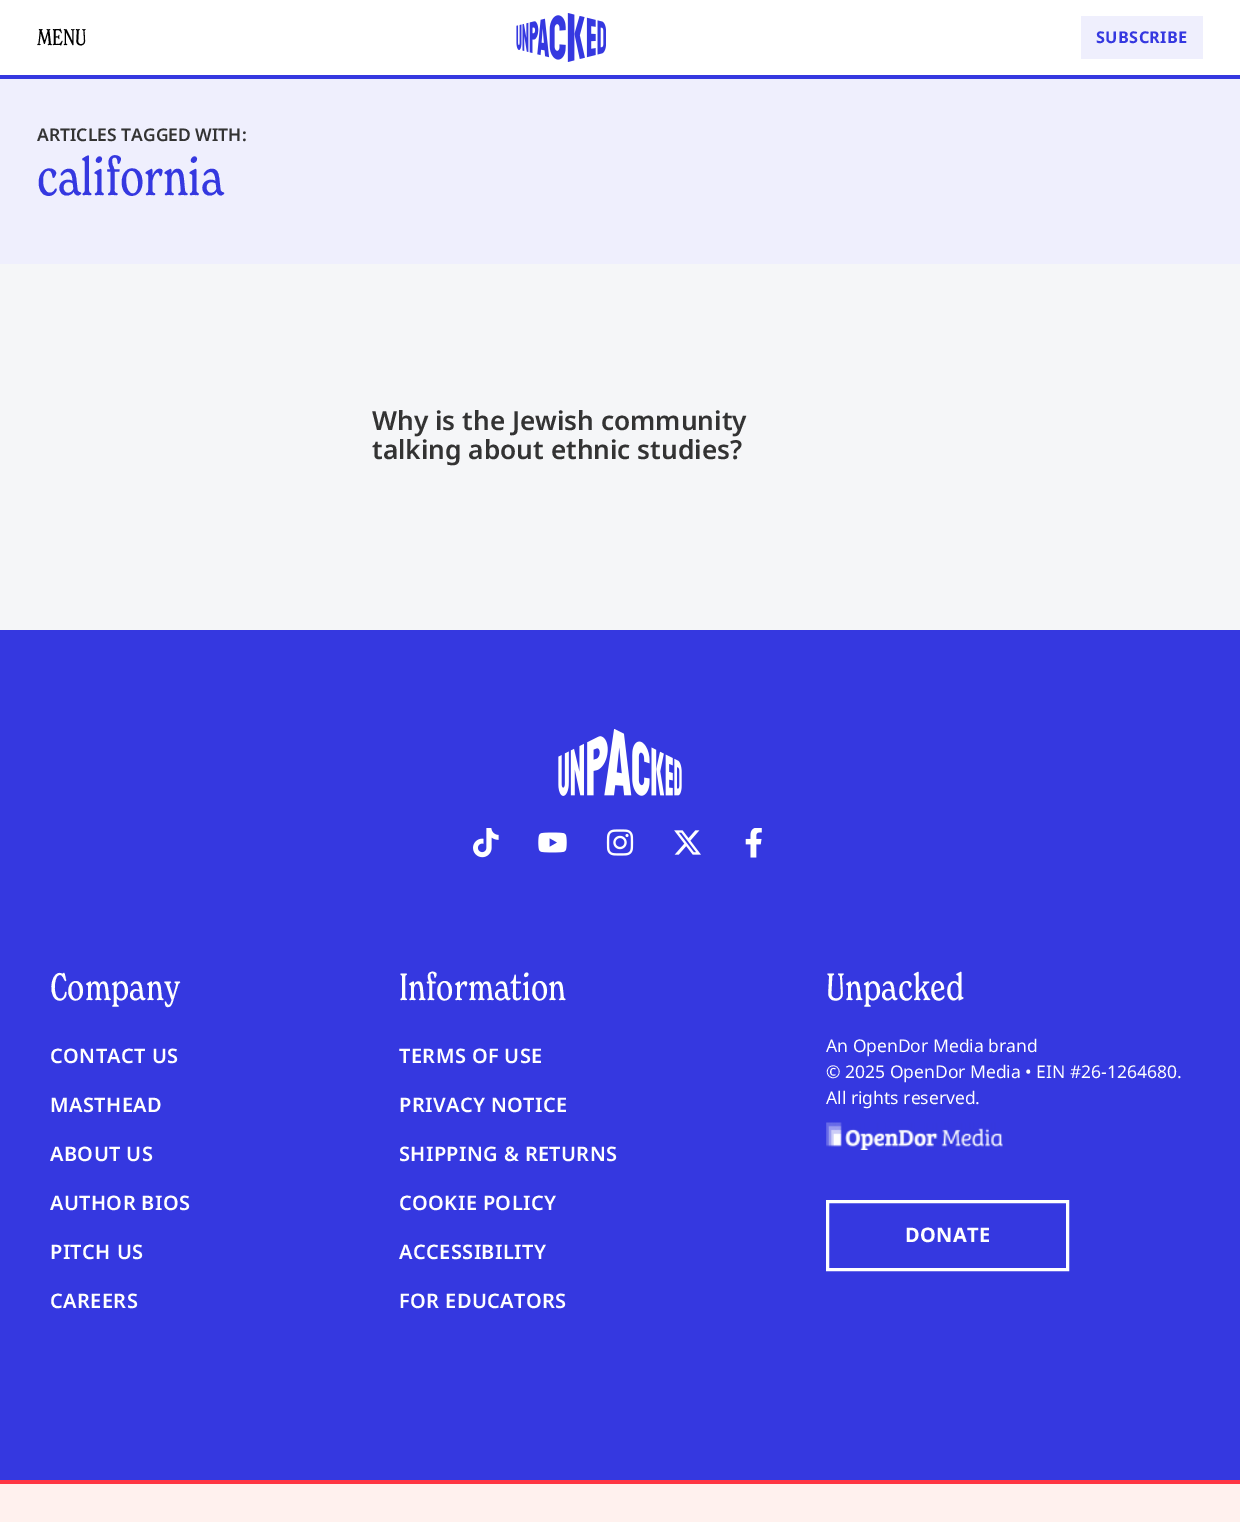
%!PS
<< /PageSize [1240 1522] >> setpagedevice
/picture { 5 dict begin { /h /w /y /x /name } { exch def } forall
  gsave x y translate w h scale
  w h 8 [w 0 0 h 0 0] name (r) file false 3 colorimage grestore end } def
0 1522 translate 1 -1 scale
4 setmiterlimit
0.961 0.965 0.973 setrgbcolor
0 0 1240 1522 rectfill
1 setgray
0 0 1240 75 rectfill
0.208 0.22 0.878 setrgbcolor
0 75 1240 4 rectfill
/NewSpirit-Regular [22.5 0 0 -22.5 0 0] selectfont
0 setgray
37 45 moveto (MENU) show
(img1.rgb) 516 13 90 49 picture
0.937 0.937 0.992 setrgbcolor
1081 16 122 43 rectfill
/NotoSans-Bold [16.25 0 0 -16.25 0 0] selectfont
0.208 0.22 0.878 setrgbcolor
1096 43 moveto 0.4 0 (SUBSCRIBE) ashow
0.937 0.937 0.992 setrgbcolor
0 79 1240 185 rectfill
/NotoSans-SemiBold [17.5 0 0 -17.5 0 0] selectfont
0.2 setgray
37 141 moveto (ARTICLES TAGGED WITH:) show
/NewSpirit-Regular [52.5 0 0 -52.5 0 0] selectfont
0.208 0.22 0.878 setrgbcolor
37 195 moveto (california) show
/NotoSans-SemiBold [26.25 0 0 -26.25 0 0] selectfont
0.2 setgray
372 430 moveto (Why is the Jewish community) show
372 459 moveto (talking about ethnic studies?) show
0.208 0.22 0.878 setrgbcolor
0 630 1240 850 rectfill
(img2.rgb) 558 729 124 67 picture
(img3.rgb) 473 828 26 30 picture
(img4.rgb) 538 832 29 21 picture
(img5.rgb) 606 829 28 27 picture
(img6.rgb) 674 830 27 25 picture
(img7.rgb) 745 828 17 30 picture
/NewSpirit-Regular [37.5 0 0 -37.5 0 0] selectfont
1 setgray
50 1000 moveto (Company) show
/NotoSans-SemiBold [20 0 0 -20 0 0] selectfont
50 1063 moveto 0.4 0 (CONTACT US) ashow
50 1112 moveto 0.4 0 (MASTHEAD) ashow
50 1161 moveto 0.4 0 (ABOUT US) ashow
50 1210 moveto 0.4 0 (AUTHOR BIOS) ashow
50 1259 moveto 0.4 0 (PITCH US) ashow
50 1308 moveto 0.4 0 (CAREERS) ashow
/NewSpirit-Regular [37.5 0 0 -37.5 0 0] selectfont
399 1000 moveto (Information) show
/NotoSans-SemiBold [20 0 0 -20 0 0] selectfont
399 1063 moveto 0.4 0 (TERMS OF USE) ashow
399 1112 moveto 0.4 0 (PRIVACY NOTICE) ashow
399 1161 moveto 0.4 0 (SHIPPING & RETURNS) ashow
399 1210 moveto 0.4 0 (COOKIE POLICY) ashow
399 1259 moveto 0.4 0 (ACCESSIBILITY) ashow
399 1308 moveto 0.4 0 (FOR EDUCATORS) ashow
/NewSpirit-Regular [37.5 0 0 -37.5 0 0] selectfont
826 1000 moveto (Unpacked) show
/NotoSans-Regular [17.5 0 0 -17.5 0 0] selectfont
826 1052 moveto (An OpenDor Media brand) show
826 1078 moveto (© 2025 OpenDor Media • EIN #26-1264680.) show
826 1104 moveto (All rights reserved.) show
(img8.rgb) 826 1122 177 28 picture
3 setlinewidth
827.5 1201.5 240 68 rectstroke
/NotoSans-Bold [20 0 0 -20 0 0] selectfont
905 1242 moveto 0.4 0 (DONATE) ashow
1 0.945 0.933 setrgbcolor
0 1484 1240 38 rectfill
1 0.208 0.263 setrgbcolor
0 1480 1240 4 rectfill
showpage
